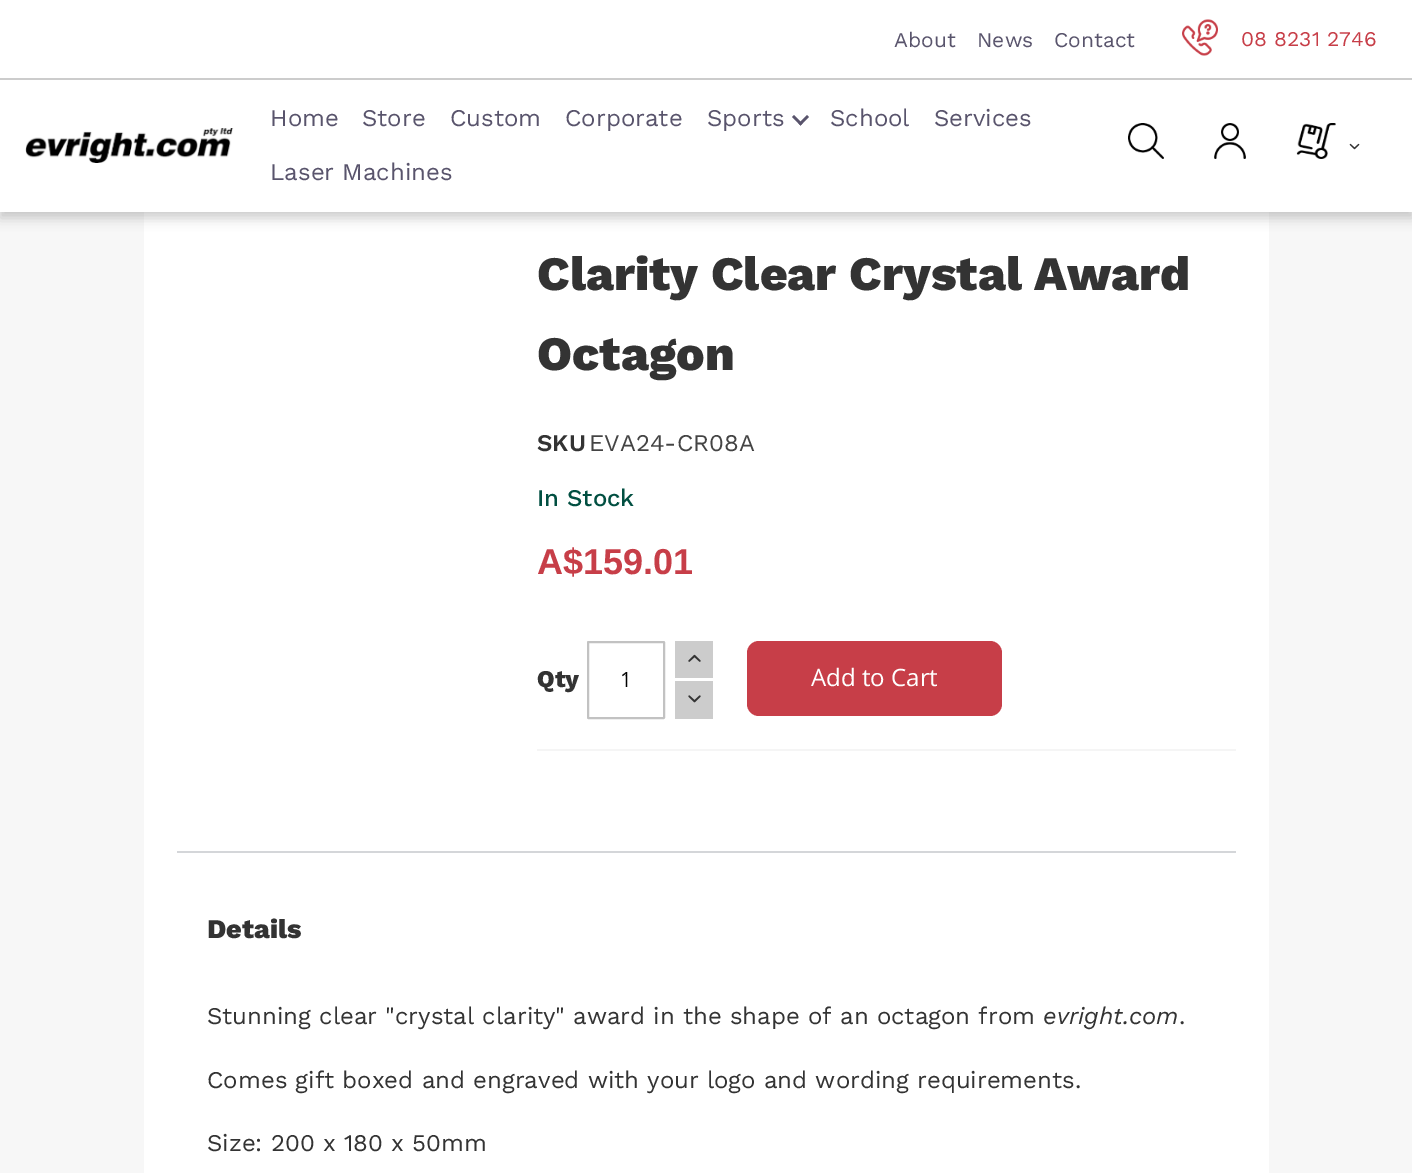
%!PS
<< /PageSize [1412 1173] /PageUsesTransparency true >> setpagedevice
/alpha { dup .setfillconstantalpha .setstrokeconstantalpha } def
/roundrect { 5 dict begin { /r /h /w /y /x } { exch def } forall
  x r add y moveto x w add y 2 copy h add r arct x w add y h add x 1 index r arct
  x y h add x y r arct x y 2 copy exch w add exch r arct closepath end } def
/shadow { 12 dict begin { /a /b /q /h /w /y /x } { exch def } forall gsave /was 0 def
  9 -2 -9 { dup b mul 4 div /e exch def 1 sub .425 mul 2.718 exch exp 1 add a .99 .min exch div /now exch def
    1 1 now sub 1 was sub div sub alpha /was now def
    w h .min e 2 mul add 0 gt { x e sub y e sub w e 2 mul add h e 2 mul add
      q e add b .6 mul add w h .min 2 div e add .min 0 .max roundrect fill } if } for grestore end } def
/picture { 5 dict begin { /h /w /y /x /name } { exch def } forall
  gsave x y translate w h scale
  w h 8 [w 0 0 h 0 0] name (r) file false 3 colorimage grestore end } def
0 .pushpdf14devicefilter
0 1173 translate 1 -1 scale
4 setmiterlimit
0.969 setgray
0 0 1412 1173 rectfill
1 setgray
144 212 1125 961 rectfill
0 setgray
0 6 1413 212 0 6 0.2 shadow
1 setgray
0 0 1412 212 rectfill
0.8 setgray
0 78 1412 2 rectfill
/WorkSans-Regular [21 0 0 -21 0 0] selectfont
0.349 0.329 0.424 setrgbcolor
894 47 moveto (About) show
977 47 moveto (News) show
1054 47 moveto (Contact) show
(img1.rgb) 1182 19 36 37 picture
0.78 0.243 0.282 setrgbcolor
1241 46 moveto (08 8231 2746) show
(img2.rgb) 25 128 209 35 picture
/WorkSans-Regular [24 0 0 -24 0 0] selectfont
0.349 0.329 0.424 setrgbcolor
270 126 moveto (Home) show
362 126 moveto (Store) show
450 126 moveto (Custom) show
565 126 moveto (Corporate) show
707 126 moveto (Sports) show
newpath 807 115 moveto 809 117 lineto 800.5 125.5 lineto 798.5 123.5 lineto closepath fill
newpath 794 115 moveto 802.5 123.5 lineto 800.5 125.5 lineto 792 117 lineto closepath fill
830 126 moveto (School) show
934 126 moveto (Services) show
270 180 moveto (Laser Machines) show
(img3.rgb) 1128 123 36 36 picture
(img4.rgb) 1214 123 32 36 picture
(img5.rgb) 1296 123 40 36 picture
(img6.rgb) 1349 143 11 7 picture
/WorkSans-ExtraBold [48 0 0 -48 0 0] selectfont
0.2 setgray
537 290 moveto (Clarity Clear Crystal Award) show
537 370 moveto (Octagon) show
/WorkSans-SemiBold [24 0 0 -24 0 0] selectfont
537 451 moveto (SKU) show
/WorkSans-Regular [24 0 0 -24 0 0] selectfont
0.267 setgray
589 451 moveto (EVA24-CR08A) show
/WorkSans-Medium [24 0 0 -24 0 0] selectfont
0.004 0.31 0.255 setrgbcolor
537 506 moveto (In Stock) show
/LiberationSans-Bold [36 0 0 -36 0 0] selectfont
0.78 0.243 0.282 setrgbcolor
537 574 moveto (A$159.01) show
0.961 setgray
537 749 699 2 rectfill
/WorkSans-ExtraBold [24 0 0 -24 0 0] selectfont
0.2 setgray
537 687 moveto (Qty) show
0.761 setgray
2 setlinewidth
588 642 76 76 0.5 roundrect stroke
/OpenSans-Regular [21 0 0 -21 0 0] selectfont
0 setgray
620 687 moveto (1) show
0.8 setgray
675 641 38 37 rectfill
(img7.rgb) 688 654 13 8 picture
675 681 38 38 rectfill
(img8.rgb) 688 695 13 8 picture
0.78 0.243 0.282 setrgbcolor
747 641 255 75 12 roundrect fill
/OpenSans-Regular [24 0 0 -24 0 0] selectfont
1 setgray
811 686 moveto (Add to Cart) show
0.831 0.839 0.851 setrgbcolor
177 851 1059 2 rectfill
/WorkSans-ExtraBold [27 0 0 -27 0 0] selectfont
0.2 setgray
207 938 moveto (Details) show
/WorkSans-Regular [24 0 0 -24 0 0] selectfont
207 1024 moveto (Stunning clear "crystal clarity" award in the shape of an octagon from) show
/WorkSans-Italic [24 0 0 -24 0 0] selectfont
1043 1024 moveto (evright.com) show
/WorkSans-Regular [24 0 0 -24 0 0] selectfont
1179 1024 moveto (.) show
207 1088 moveto (Comes gift boxed and engraved with your logo and wording requirements.) show
207 1151 moveto (Size: 200 x 180 x 50mm) show
.poppdf14devicefilter showpage
